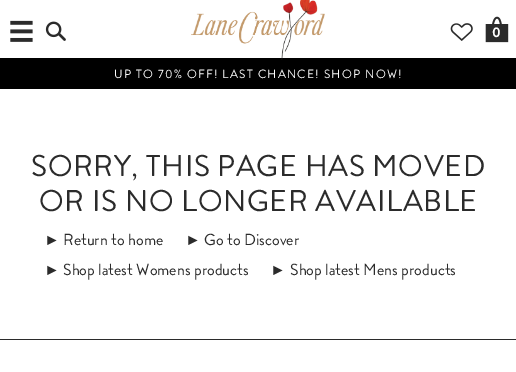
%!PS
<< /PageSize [516 372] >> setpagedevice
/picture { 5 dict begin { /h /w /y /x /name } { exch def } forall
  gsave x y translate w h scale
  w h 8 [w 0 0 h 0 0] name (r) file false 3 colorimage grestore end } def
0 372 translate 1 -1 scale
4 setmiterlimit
1 setgray
0 0 516 372 rectfill
0 setgray
0 58 516 31 rectfill
(img1.rgb) 191 0 134 60 picture
(img2.rgb) 10 20 23 22 picture
(img3.rgb) 45 21 21 20 picture
(img4.rgb) 450 23 23 18 picture
(img5.rgb) 485 16 24 27 picture
/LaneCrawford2-Regular [14 0 0 -14 0 0] selectfont
1 setgray
492 37 moveto 0.6 0 (0) ashow
/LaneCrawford-Regular [12 0 0 -12 0 0] selectfont
114 78 moveto 1.2 0 (UP TO 70% OFF! LAST CHANCE! SHOP NOW!) ashow
/LaneCrawford-Regular [30 0 0 -30 0 0] selectfont
0.169 setgray
31 176 moveto 0.6 0 (SORRY, THIS PAGE HAS MOVED) ashow
39 211 moveto 0.6 0 (OR IS NO LONGER AVAILABLE) ashow
/LiberationSerif-Regular [16 0 0 -16 0 0] selectfont
44 245 moveto (►) show
/LaneCrawford-Regular [16 0 0 -16 0 0] selectfont
63 245 moveto (Return to home) show
/LiberationSerif-Regular [16 0 0 -16 0 0] selectfont
185 245 moveto (►) show
/LaneCrawford-Regular [16 0 0 -16 0 0] selectfont
204 245 moveto (Go to Discover) show
/LiberationSerif-Regular [16 0 0 -16 0 0] selectfont
44 275 moveto (►) show
/LaneCrawford-Regular [16 0 0 -16 0 0] selectfont
63 275 moveto (Shop latest Womens products) show
/LiberationSerif-Regular [16 0 0 -16 0 0] selectfont
270 275 moveto (►) show
/LaneCrawford-Regular [16 0 0 -16 0 0] selectfont
290 275 moveto (Shop latest Mens products) show
0 339 516 1 rectfill
showpage
